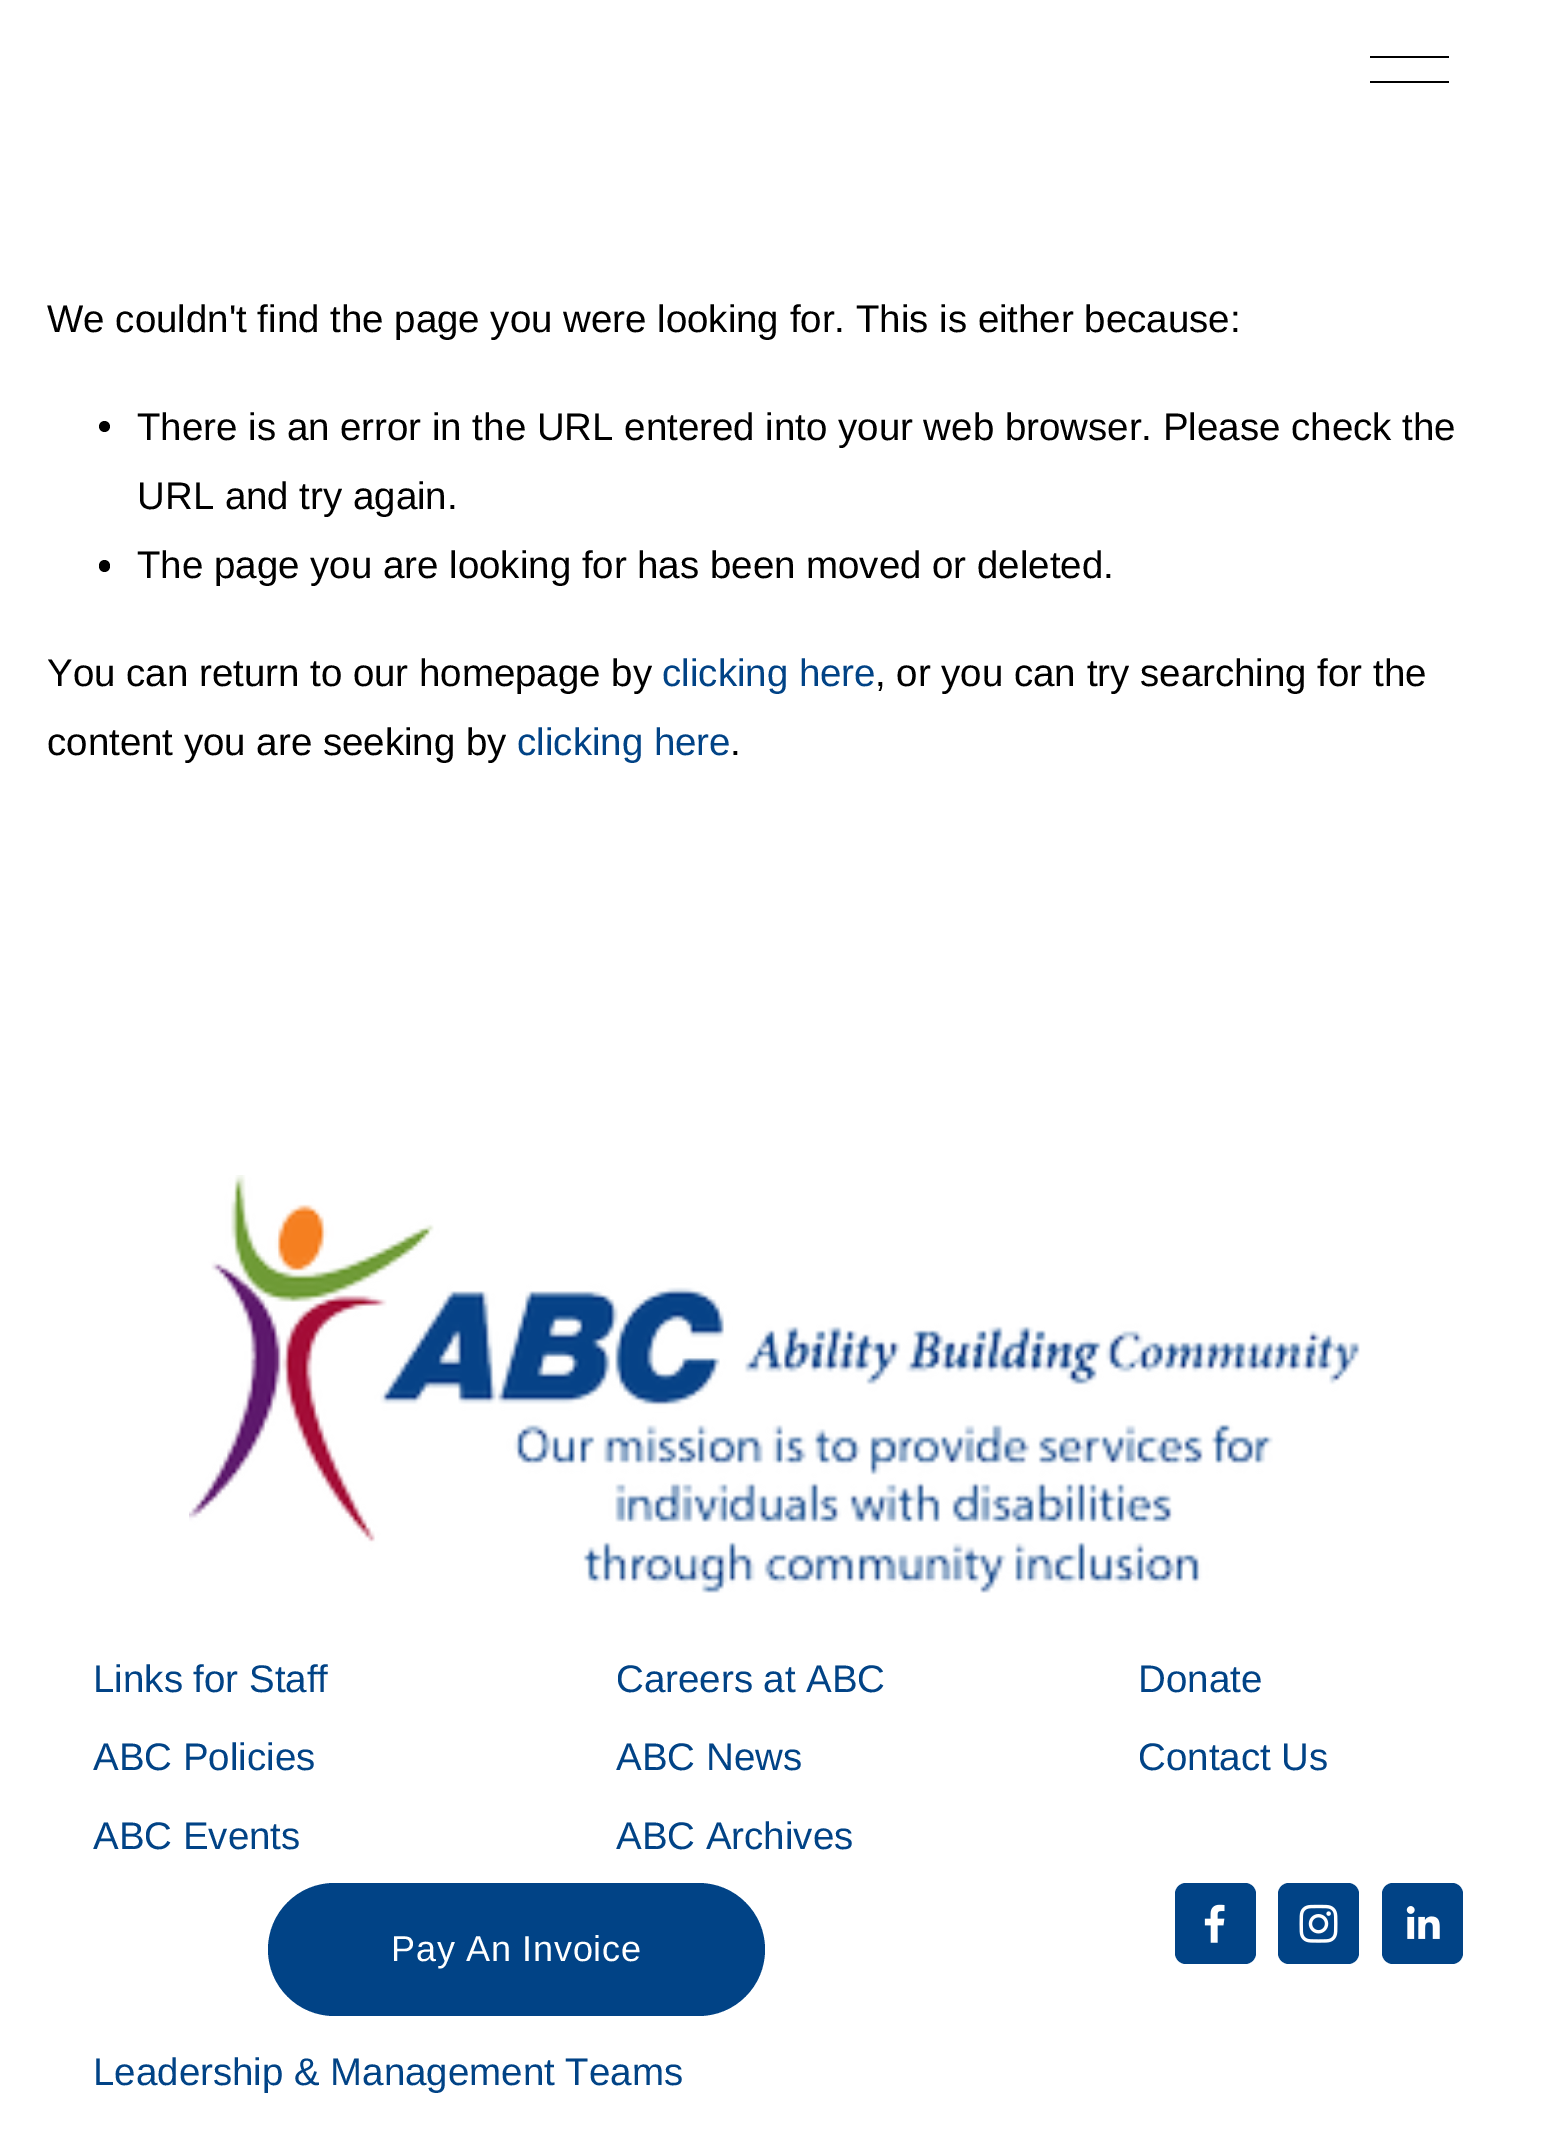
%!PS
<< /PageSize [1553 2131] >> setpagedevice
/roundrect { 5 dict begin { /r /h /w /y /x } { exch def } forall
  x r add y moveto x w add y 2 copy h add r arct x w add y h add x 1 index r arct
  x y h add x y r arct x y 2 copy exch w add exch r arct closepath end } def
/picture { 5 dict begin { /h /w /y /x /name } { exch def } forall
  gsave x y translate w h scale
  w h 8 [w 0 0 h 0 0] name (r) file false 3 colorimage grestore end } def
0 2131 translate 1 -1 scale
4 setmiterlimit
1 setgray
0 0 1553 2131 rectfill
0 setgray
1370 56 79 2 rectfill
1370 81 79 2 rectfill
/LiberationSans-Regular [38.45 0 0 -38.45 0 0] selectfont
47 332 moveto (We couldn't find the page you were looking for. This is either because:) show
newpath 104.5 426.5 5.5 0 360 arc closepath fill
137 440 moveto (There is an error in the URL entered into your web browser. Please check the) show
137 509 moveto (URL and try again.) show
99 560 11 12 5.5 roundrect fill
137 578 moveto (The page you are looking for has been moved or deleted.) show
47 686 moveto (You can return to our homepage by) show
0.004 0.263 0.525 setrgbcolor
662 686 moveto (clicking here) show
0 setgray
875 686 moveto (, or you can try searching for the) show
47 755 moveto (content you are seeking by) show
0.004 0.263 0.525 setrgbcolor
517 755 moveto (clicking here) show
0 setgray
730 755 moveto (.) show
(img1.rgb) 189 1175 1171 418 picture
0.004 0.263 0.525 setrgbcolor
93 1692 moveto (Links for Staff) show
616 1692 moveto (Careers at ABC) show
1138 1692 moveto (Donate) show
93 1770 moveto (ABC Policies) show
616 1770 moveto (ABC News) show
1138 1770 moveto (Contact Us) show
93 1849 moveto (ABC Events) show
616 1849 moveto (ABC Archives) show
268 1883 497 133 66.5 roundrect fill
/LiberationSans-Regular [36 0 0 -36 0 0] selectfont
1 setgray
391 1961 moveto 0.75 0 (Pay An Invoice) ashow
0.004 0.263 0.525 setrgbcolor
1175 1883 81 81 11 roundrect fill
(img2.rgb) 1204 1904 21 39 picture
1278 1883 81 81 11 roundrect fill
(img3.rgb) 1299 1904 39 39 picture
1382 1883 81 81 11 roundrect fill
(img4.rgb) 1406 1906 34 33 picture
/LiberationSans-Regular [38.45 0 0 -38.45 0 0] selectfont
93 2085 moveto (Leadership & Management Teams) show
showpage
